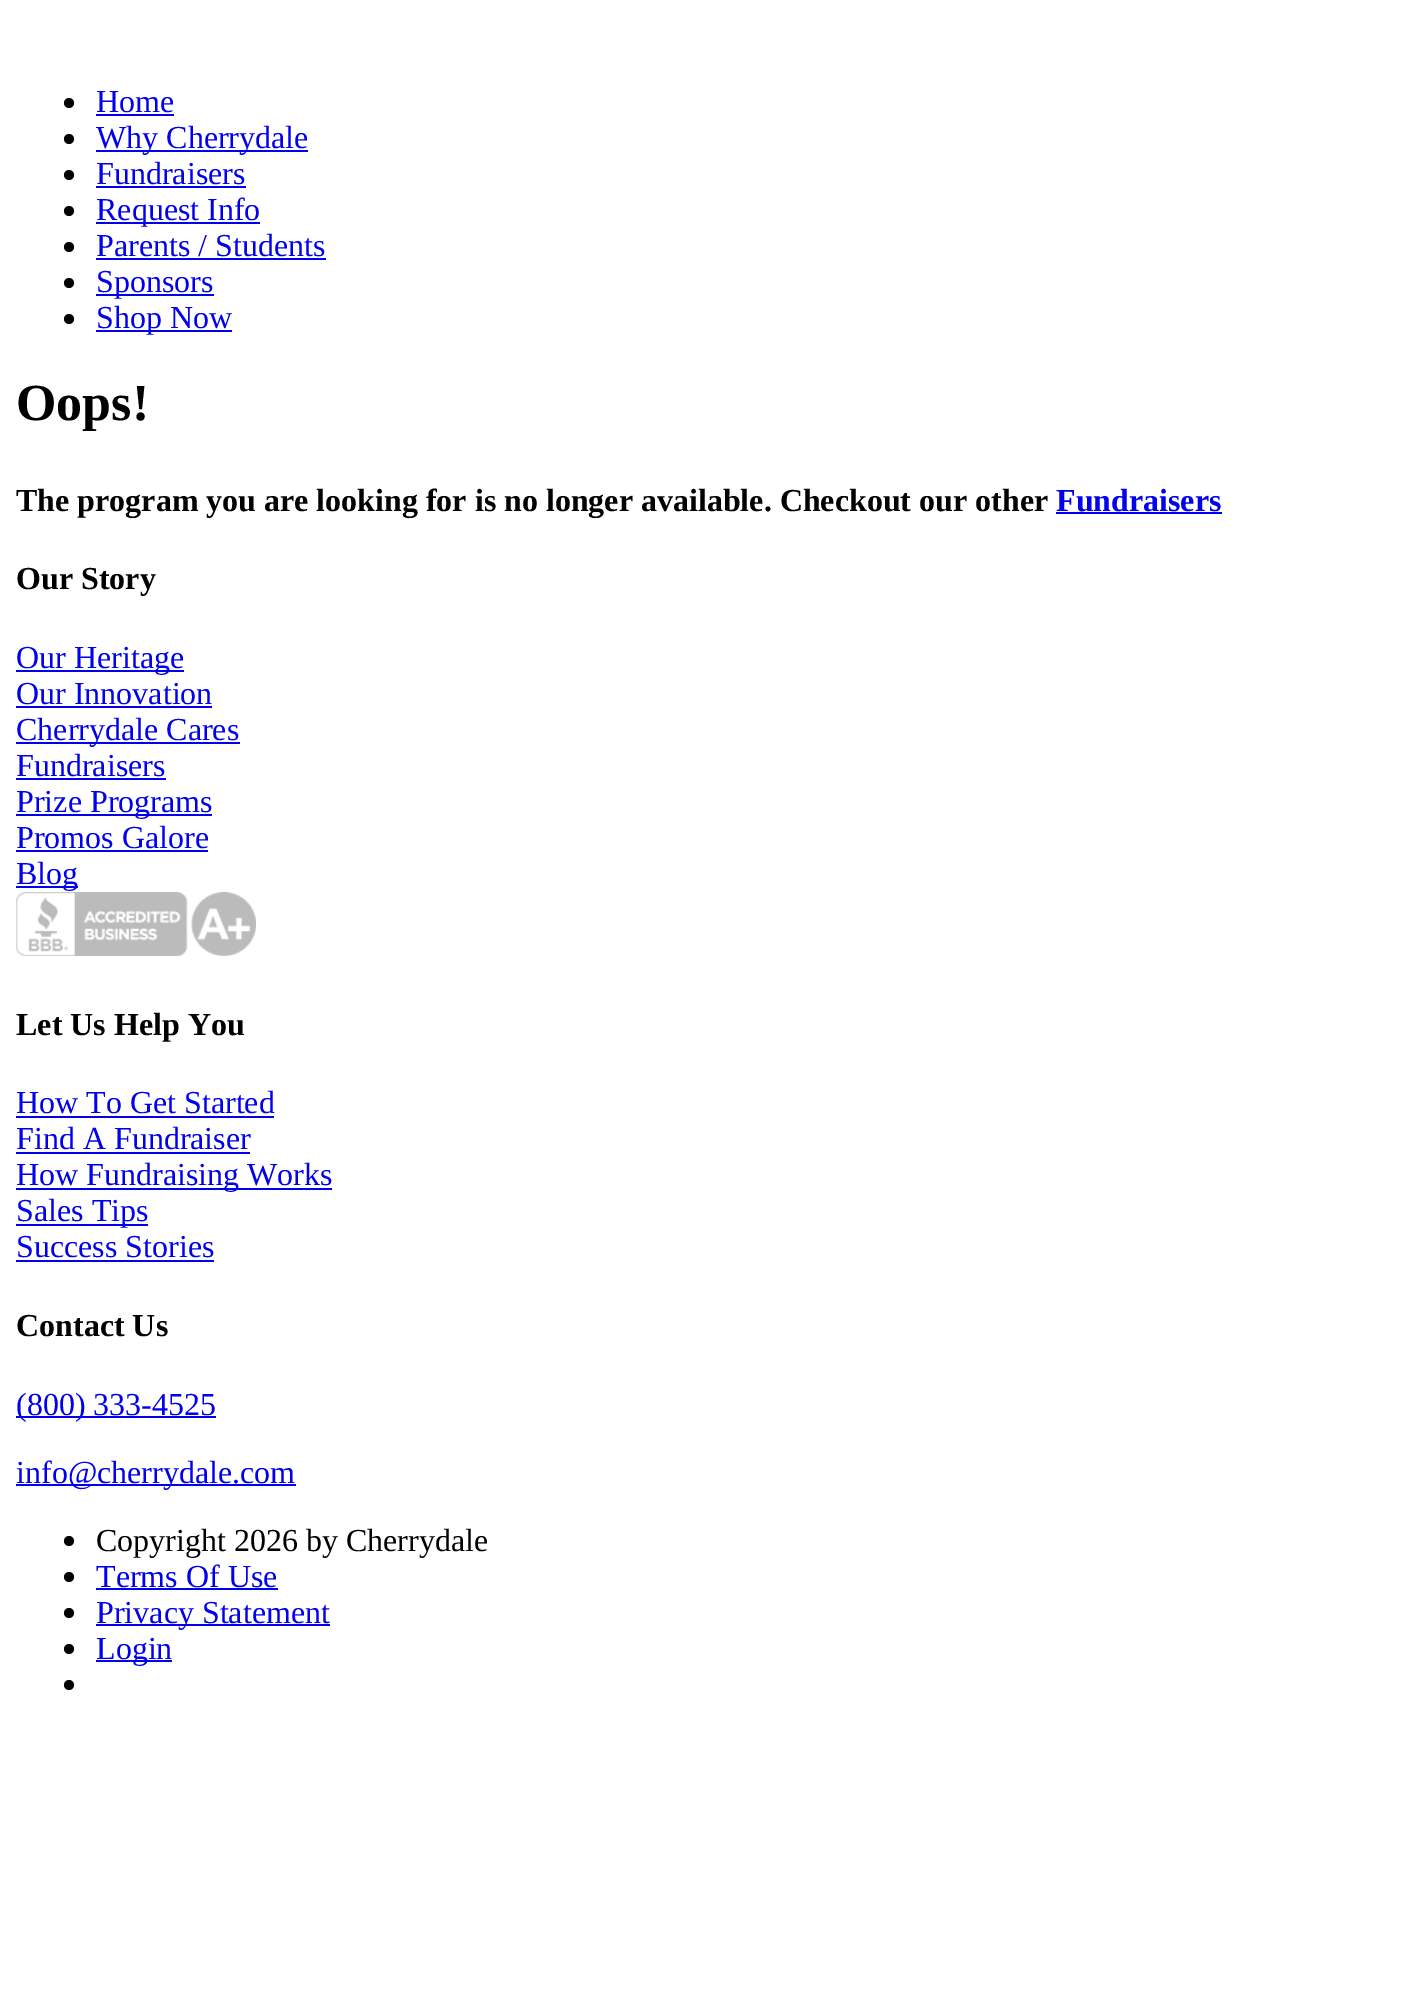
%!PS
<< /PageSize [1422 2000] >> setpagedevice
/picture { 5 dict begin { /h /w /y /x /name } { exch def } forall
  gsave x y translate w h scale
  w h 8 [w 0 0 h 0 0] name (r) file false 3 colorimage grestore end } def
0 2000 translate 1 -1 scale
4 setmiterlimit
1 setgray
0 0 1422 2000 rectfill
0 setgray
newpath 69 103 5 0 360 arc closepath fill
/LiberationSerif-Regular [32 0 0 -32 0 0] selectfont
0 0 0.933 setrgbcolor
96 112 moveto (Home) show
96 114 78 2 rectfill
0 setgray
newpath 69 139 5 0 360 arc closepath fill
0 0 0.933 setrgbcolor
96 150 212 2 rectfill
96 148 moveto (Why Cherrydale) show
0 setgray
newpath 69 175 5 0 360 arc closepath fill
0 0 0.933 setrgbcolor
96 184 moveto (Fundraisers) show
96 186 150 2 rectfill
0 setgray
newpath 69 211 5 0 360 arc closepath fill
0 0 0.933 setrgbcolor
96 222 164 2 rectfill
96 220 moveto (Request Info) show
0 setgray
newpath 69 247 5 0 360 arc closepath fill
0 0 0.933 setrgbcolor
96 256 moveto (Parents / Students) show
96 258 230 2 rectfill
0 setgray
newpath 69 283 5 0 360 arc closepath fill
0 0 0.933 setrgbcolor
96 294 118 2 rectfill
96 292 moveto (Sponsors) show
0 setgray
newpath 69 319 5 0 360 arc closepath fill
0 0 0.933 setrgbcolor
96 330 136 2 rectfill
96 328 moveto (Shop Now) show
/LiberationSerif-Bold [52 0 0 -52 0 0] selectfont
0 setgray
16 420 moveto (Oops!) show
/LiberationSerif-Bold [32 0 0 -32 0 0] selectfont
16 511 moveto (The program you are looking for is no longer available. Checkout our other) show
0 0 0.933 setrgbcolor
1056 511 moveto (Fundraisers) show
1056 512 166 2 rectfill
0 setgray
16 589 moveto (Our Story) show
0 0 0.933 setrgbcolor
16 670 168 2 rectfill
/LiberationSerif-Regular [32 0 0 -32 0 0] selectfont
16 668 moveto (Our Heritage) show
16 704 moveto (Our Innovation) show
16 706 196 2 rectfill
16 742 224 2 rectfill
16 740 moveto (Cherrydale Cares) show
16 776 moveto (Fundraisers) show
16 778 150 2 rectfill
16 814 196 2 rectfill
16 812 moveto (Prize Programs) show
16 848 moveto (Promos Galore) show
16 850 192 2 rectfill
16 886 62 2 rectfill
16 884 moveto (Blog) show
(img1.rgb) 16 892 240 64 picture
/LiberationSerif-Bold [32 0 0 -32 0 0] selectfont
0 setgray
16 1035 moveto (Let Us Help You) show
/LiberationSerif-Regular [32 0 0 -32 0 0] selectfont
0 0 0.933 setrgbcolor
16 1113 moveto (How To Get Started) show
16 1116 258 2 rectfill
16 1149 moveto (Find A Fundraiser) show
16 1152 234 2 rectfill
16 1188 316 2 rectfill
16 1185 moveto (How Fundraising Works) show
16 1224 132 2 rectfill
16 1221 moveto (Sales Tips) show
16 1257 moveto (Success Stories) show
16 1260 198 2 rectfill
/LiberationSerif-Bold [32 0 0 -32 0 0] selectfont
0 setgray
16 1336 moveto (Contact Us) show
0 0 0.933 setrgbcolor
16 1416 200 2 rectfill
/LiberationSerif-Regular [32 0 0 -32 0 0] selectfont
16 1415 moveto (\(800\) 333-4525) show
16 1484 280 2 rectfill
16 1483 moveto (info@cherrydale.com) show
0 setgray
newpath 69 1541 5 0 360 arc closepath fill
96 1551 moveto (Copyright 2026 by Cherrydale) show
newpath 69 1577 5 0 360 arc closepath fill
0 0 0.933 setrgbcolor
96 1587 moveto (Terms Of Use) show
96 1588 182 2 rectfill
0 setgray
newpath 69 1613 5 0 360 arc closepath fill
0 0 0.933 setrgbcolor
96 1624 234 2 rectfill
96 1623 moveto (Privacy Statement) show
0 setgray
newpath 69 1649 5 0 360 arc closepath fill
0 0 0.933 setrgbcolor
96 1660 76 2 rectfill
96 1659 moveto (Login) show
0 setgray
newpath 69 1685 5 0 360 arc closepath fill
showpage
